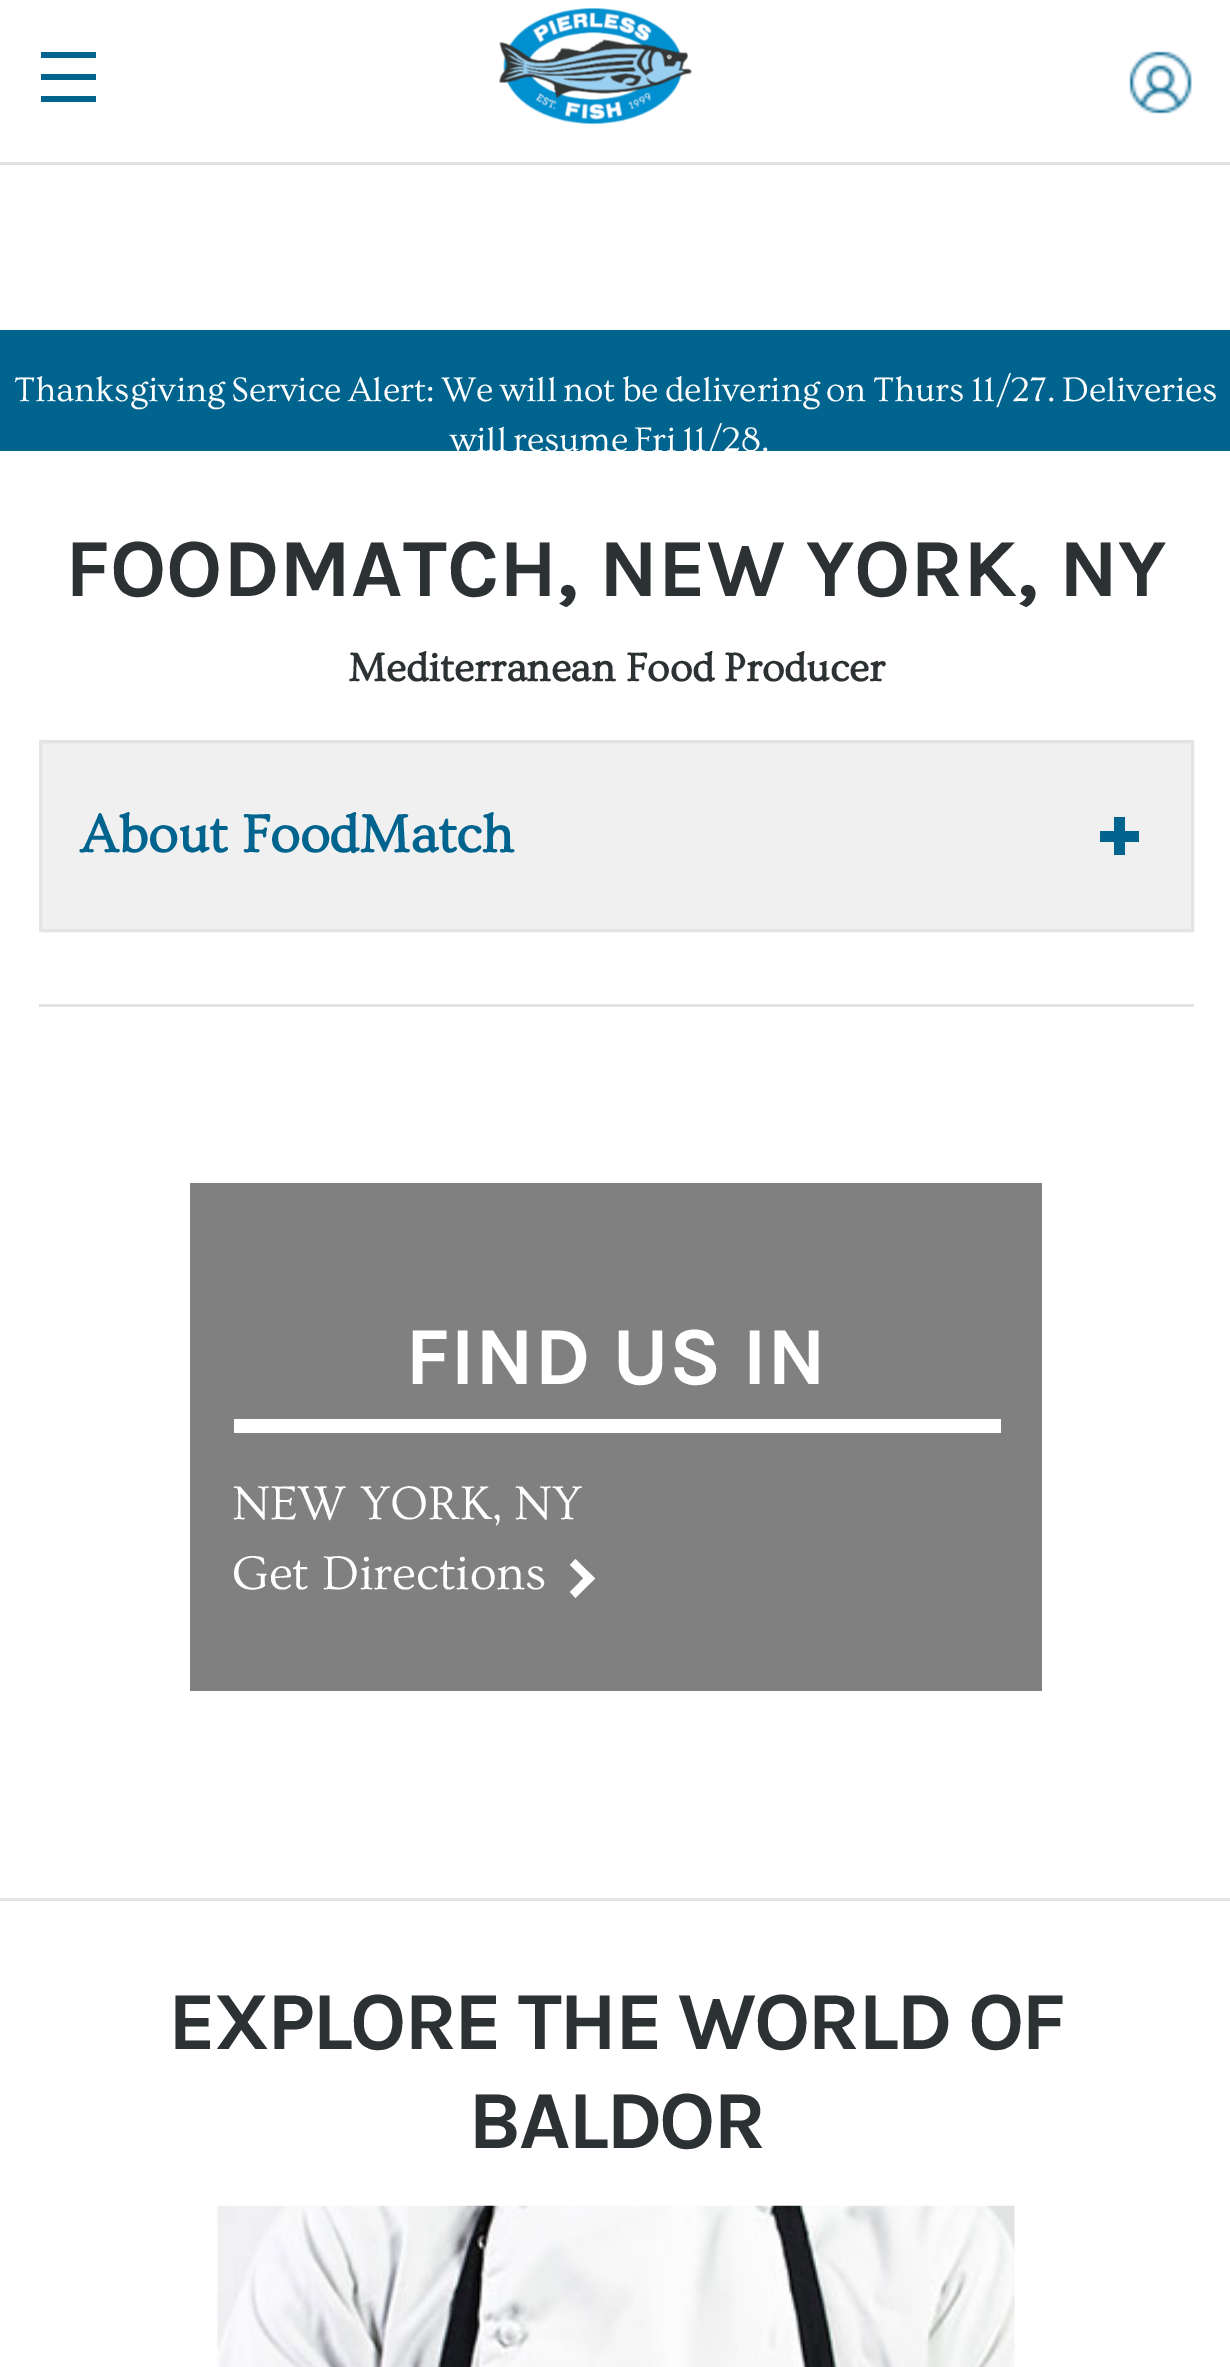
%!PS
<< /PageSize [1230 2367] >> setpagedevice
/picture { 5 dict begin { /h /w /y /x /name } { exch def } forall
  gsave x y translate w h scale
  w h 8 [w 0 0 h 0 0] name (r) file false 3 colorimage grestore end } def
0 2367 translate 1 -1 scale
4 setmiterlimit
1 setgray
0 0 1230 2367 rectfill
0.882 setgray
0 162 1230 3 rectfill
0 0.392 0.561 setrgbcolor
41 74 55 6 rectfill
41 52 55 6 rectfill
41 96 55 6 rectfill
(img1.rgb) 499 7 193 118 picture
(img2.rgb) 1129 51 63 63 picture
0 330 1230 121 rectfill
/Ovo-Regular [35.75 0 0 -35.75 0 0] selectfont
1 setgray
14 401 moveto -2.75 0 32 (Thanksgiving Service Alert: We will not be delivering on Thurs 11/27. Deliveries) widthshow
gsave
0 330 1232 121 rectclip
450 451 moveto -3.5 0 32 (will resume Fri 11/28.) widthshow
grestore
/Karla-Bold [82.5 0 0 -82.5 0 0] selectfont
0.173 0.192 0.2 setrgbcolor
65 596 moveto (FOODMATCH, NEW YORK, NY) show
/Ovo-Bold [41.25 0 0 -41.25 0 0] selectfont
348 681 moveto (Mediterranean Food Producer) show
0.894 setgray
39 1004 1155 3 rectfill
0.941 setgray
newpath 40.5 741.5 moveto 1192.5 741.5 lineto 1192.5 930.5 lineto 40.5 930.5 lineto closepath gsave fill grestore
0.894 setgray
3 setlinewidth
stroke
/Ovo-Bold [55 0 0 -55 0 0] selectfont
0 0.392 0.561 setrgbcolor
80 852 moveto (About FoodMatch) show
1114 817 11 38 rectfill
1100 831 39 11 rectfill
0.502 setgray
190 1183 852 508 rectfill
1 setgray
234 1419 767 14 rectfill
/Karla-Bold [82.5 0 0 -82.5 0 0] selectfont
405 1384 moveto (FIND US IN) show
/Ovo-Regular [49.5 0 0 -49.5 0 0] selectfont
232 1519 moveto (NEW YORK, NY) show
232 1589 moveto (Get Directions) show
newpath 575.5 1559 moveto 595 1578.5 lineto 589 1584 lineto 570 1565 lineto closepath fill
newpath 570 1592 moveto 589 1572.5 lineto 595 1578.5 lineto 575.5 1598 lineto closepath fill
0.894 setgray
0 1898 1230 3 rectfill
/Karla-Bold [82.5 0 0 -82.5 0 0] selectfont
0.173 0.192 0.2 setrgbcolor
168 2049 moveto -2.75 0 (EXPLORE THE WORLD OF) ashow
468 2148 moveto -2.75 0 (BALDOR) ashow
(img3.rgb) 217 2205 798 162 picture
showpage
